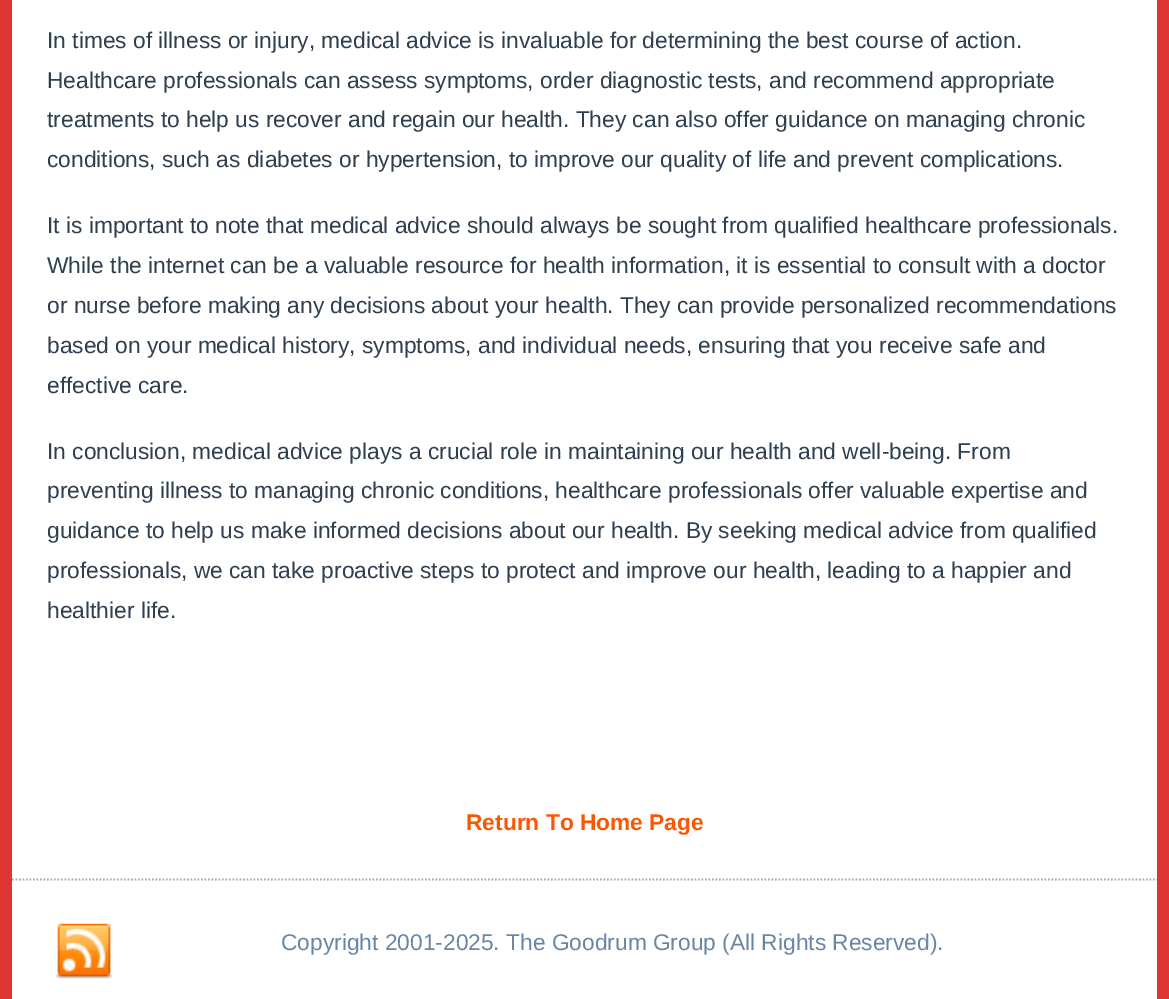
%!PS
<< /PageSize [1169 999] >> setpagedevice
/picture { 5 dict begin { /h /w /y /x /name } { exch def } forall
  gsave x y translate w h scale
  w h 8 [w 0 0 h 0 0] name (r) file false 3 colorimage grestore end } def
0 999 translate 1 -1 scale
4 setmiterlimit
0.867 0.208 0.204 setrgbcolor
0 0 1169 999 rectfill
1 setgray
12 0 1145 999 rectfill
/LiberationSans-Regular [22.75 0 0 -22.75 0 0] selectfont
0.188 0.247 0.314 setrgbcolor
47 48 moveto (In times of illness or injury, medical advice is invaluable for determining the best course of action.) show
47 88 moveto (Healthcare professionals can assess symptoms, order diagnostic tests, and recommend appropriate) show
47 127 moveto (treatments to help us recover and regain our health. They can also offer guidance on managing chronic) show
47 167 moveto (conditions, such as diabetes or hypertension, to improve our quality of life and prevent complications.) show
47 233 moveto (It is important to note that medical advice should always be sought from qualified healthcare professionals.) show
47 273 moveto (While the internet can be a valuable resource for health information, it is essential to consult with a doctor) show
47 313 moveto (or nurse before making any decisions about your health. They can provide personalized recommendations) show
47 353 moveto (based on your medical history, symptoms, and individual needs, ensuring that you receive safe and) show
47 393 moveto (effective care.) show
47 459 moveto (In conclusion, medical advice plays a crucial role in maintaining our health and well-being. From) show
47 498 moveto (preventing illness to managing chronic conditions, healthcare professionals offer valuable expertise and) show
47 538 moveto (guidance to help us make informed decisions about our health. By seeking medical advice from qualified) show
47 578 moveto (professionals, we can take proactive steps to protect and improve our health, leading to a happier and) show
47 618 moveto (healthier life.) show
/LiberationSans-Bold [22.75 0 0 -22.75 0 0] selectfont
0.98 0.341 0.02 setrgbcolor
466 830 moveto (Return To Home Page) show
0.612 0.686 0.769 setrgbcolor
1.8 setlinewidth
[1.75 1.75] 0 setdash
newpath 12 879.5 moveto 1157 879.5 lineto stroke
(img1.rgb) 56 923 56 56 picture
/LiberationSans-Regular [22.75 0 0 -22.75 0 0] selectfont
0.412 0.525 0.647 setrgbcolor
281 950 moveto (Copyright 2001-2025. The Goodrum Group \(All Rights Reserved\).) show
showpage
